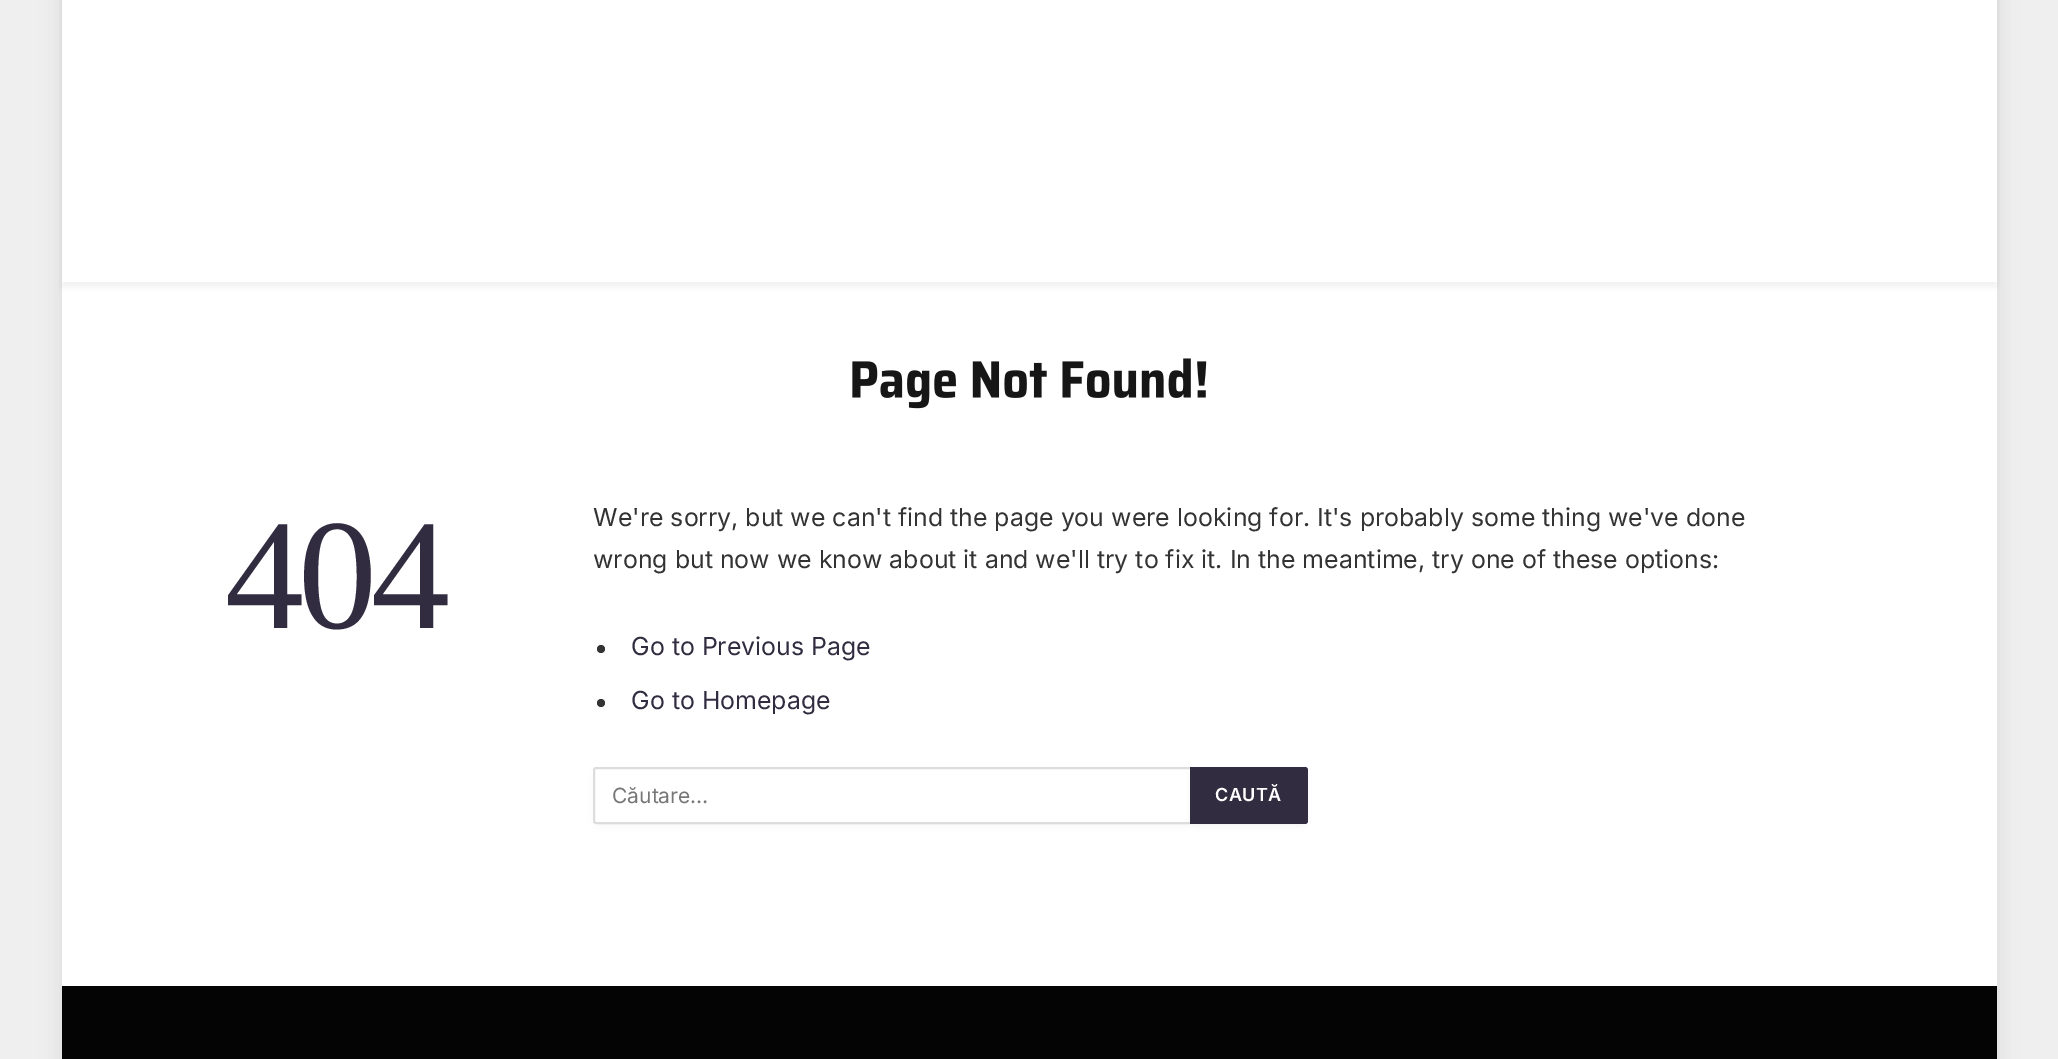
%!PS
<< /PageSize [2058 1059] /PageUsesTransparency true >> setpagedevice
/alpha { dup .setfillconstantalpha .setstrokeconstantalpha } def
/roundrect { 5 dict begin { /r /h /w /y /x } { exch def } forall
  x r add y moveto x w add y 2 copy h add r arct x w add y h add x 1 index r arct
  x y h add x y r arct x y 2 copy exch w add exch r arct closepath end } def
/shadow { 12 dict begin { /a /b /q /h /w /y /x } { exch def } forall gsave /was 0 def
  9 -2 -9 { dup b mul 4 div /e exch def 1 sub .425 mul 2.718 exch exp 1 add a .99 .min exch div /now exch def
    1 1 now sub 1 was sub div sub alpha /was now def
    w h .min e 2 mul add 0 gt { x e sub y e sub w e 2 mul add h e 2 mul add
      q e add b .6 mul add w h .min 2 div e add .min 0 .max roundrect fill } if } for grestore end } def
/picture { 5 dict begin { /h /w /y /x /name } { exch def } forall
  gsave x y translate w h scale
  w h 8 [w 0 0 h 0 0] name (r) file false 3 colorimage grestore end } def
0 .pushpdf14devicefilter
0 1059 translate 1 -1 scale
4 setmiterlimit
0.937 setgray
0 0 2058 1059 rectfill
0 setgray
62 -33 1935 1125 0 11 0.08 shadow
1 setgray
62 0 1935 986 rectfill
gsave
newpath 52 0 moveto 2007 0 lineto 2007 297 lineto 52 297 lineto closepath 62 -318 moveto 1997 -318 lineto 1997 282 lineto 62 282 lineto closepath eoclip newpath
0 setgray
62 -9 1935 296 0 3 0.05 shadow
grestore
(img1.rgb) 852 358 355 51 picture
/LiberationSerif-Regular [158 0 0 -158 0 0] selectfont
0.196 0.173 0.251 setrgbcolor
225 628 moveto -6 0 (404) ashow
/Inter-Regular [24.9 0 0 -24.9 0 0] selectfont
0.2 setgray
593 526 moveto (We're sorry, but we can't find the page you were looking for. It's probably some thing we've done) show
593 568 moveto (wrong but now we know about it and we'll try to fix it. In the meantime, try one of these options:) show
newpath 601 649 4 0 360 arc closepath fill
0.196 0.173 0.251 setrgbcolor
631 655 moveto (Go to Previous Page) show
0.2 setgray
newpath 601 703 4 0 360 arc closepath fill
0.196 0.173 0.251 setrgbcolor
631 709 moveto (Go to Homepage) show
0 setgray
599 776 588 45 0 5 0.1 shadow
1 setgray
594 768 598 55 2 roundrect gsave fill grestore
0.867 setgray
2 setlinewidth
stroke
/Inter-Regular [21 0 0 -21 0 0] selectfont
0.467 setgray
612 803 moveto (Căutare…) show
0 setgray
1196 776 106 45 0 5 0.16 shadow
0.196 0.173 0.251 setrgbcolor
newpath 1190 767 moveto 1305 767 lineto 1306.5 767 1308 768.5 1308 770 curveto 1308 821 lineto 1308 822.5 1306.5 824 1305 824 curveto 1190 824 lineto closepath fill
/Inter-SemiBold [18 0 0 -18 0 0] selectfont
1 setgray
1215 801 moveto 0.5 0 (CAUTĂ) ashow
0.016 setgray
62 986 1935 73 rectfill
.poppdf14devicefilter showpage
